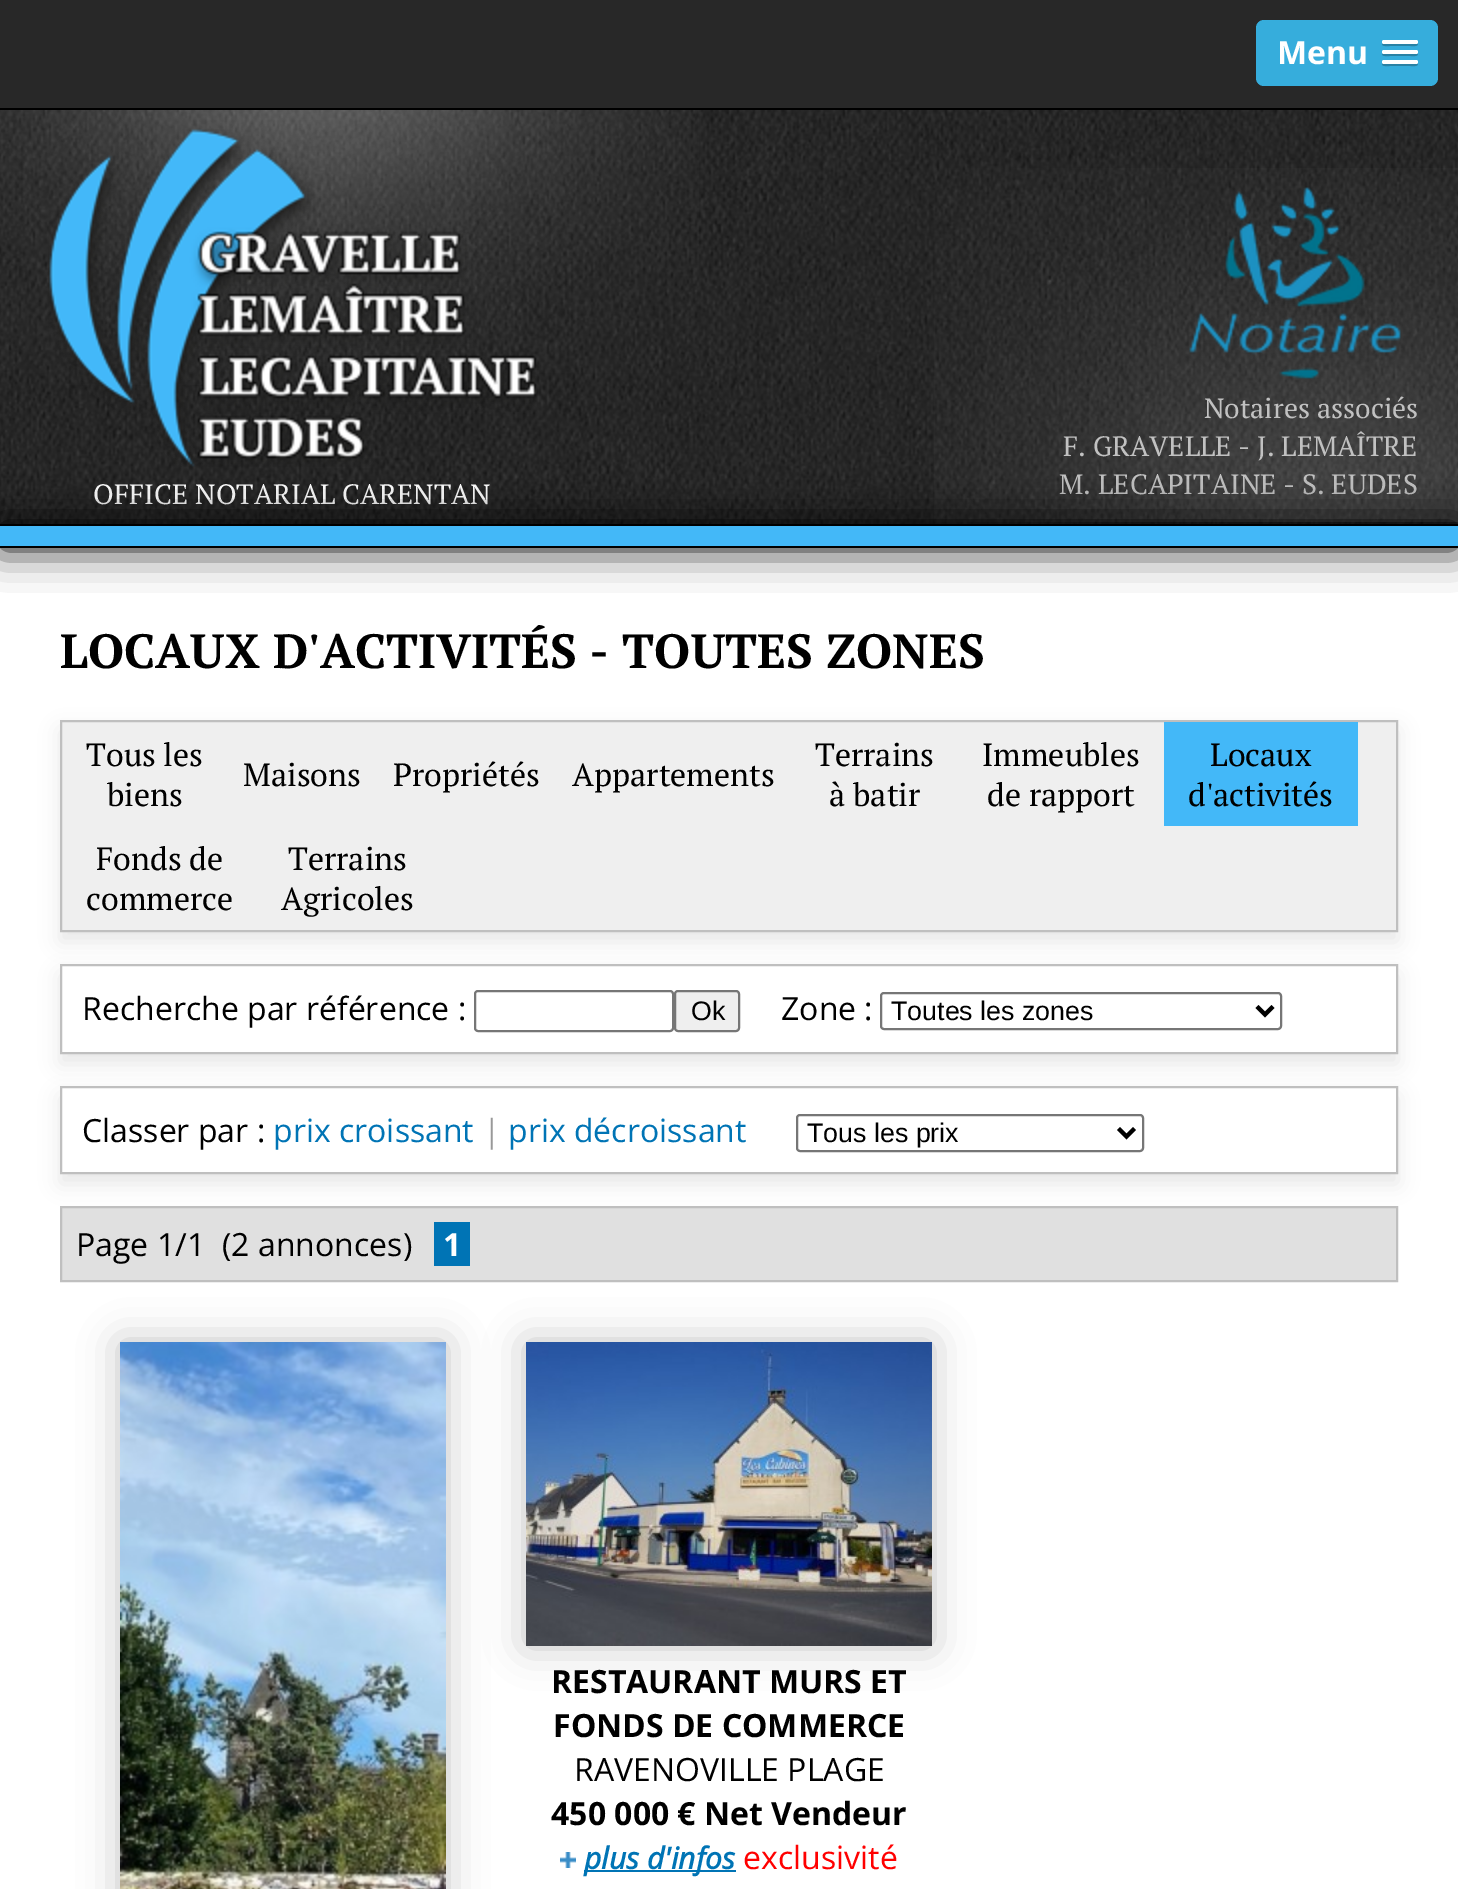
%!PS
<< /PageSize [1458 1889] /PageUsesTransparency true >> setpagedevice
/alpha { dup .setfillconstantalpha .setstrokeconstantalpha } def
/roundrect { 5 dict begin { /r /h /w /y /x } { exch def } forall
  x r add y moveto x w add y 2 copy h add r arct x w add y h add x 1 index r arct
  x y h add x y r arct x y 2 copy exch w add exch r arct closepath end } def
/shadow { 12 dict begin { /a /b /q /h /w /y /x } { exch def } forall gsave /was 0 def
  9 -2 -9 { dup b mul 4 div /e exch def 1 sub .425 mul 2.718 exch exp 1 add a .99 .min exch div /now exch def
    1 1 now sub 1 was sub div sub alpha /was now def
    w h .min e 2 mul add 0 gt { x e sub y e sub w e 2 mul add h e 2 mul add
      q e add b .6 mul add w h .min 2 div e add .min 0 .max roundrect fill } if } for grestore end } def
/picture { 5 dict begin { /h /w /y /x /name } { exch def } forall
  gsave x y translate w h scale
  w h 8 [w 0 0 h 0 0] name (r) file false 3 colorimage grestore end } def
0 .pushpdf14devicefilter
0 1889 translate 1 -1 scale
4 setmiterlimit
0.157 setgray
0 0 1458 1889 rectfill
0 setgray
0 108 1458 2 rectfill
0.212 0.678 0.863 setrgbcolor
1256 20 182 66 8 roundrect fill
/OpenSans-Bold [32 0 0 -32 0 0] selectfont
1 setgray
1277 64 moveto (Menu) show
0.161 0.51 0.647 setrgbcolor
newpath 1382.5 43 moveto 1380 47 1389 46 1389.5 46 curveto 1410.5 46 lineto 1411 46 1420 47 1417.5 43 curveto 1417.5 43.5 1416.5 44 1416 44 curveto 1384 44 lineto 1383.5 44 1382.5 43.5 1382.5 43 curveto closepath fill
1 setgray
1382 40 36 4 2 roundrect fill
0.161 0.51 0.647 setrgbcolor
newpath 1382.5 53 moveto 1380 57 1389 56 1389.5 56 curveto 1410.5 56 lineto 1411 56 1420 57 1417.5 53 curveto 1417.5 53.5 1416.5 54 1416 54 curveto 1384 54 lineto 1383.5 54 1382.5 53.5 1382.5 53 curveto closepath fill
1 setgray
1382 50 36 4 2 roundrect fill
0.161 0.51 0.647 setrgbcolor
newpath 1382.5 63 moveto 1380 67 1389 66 1389.5 66 curveto 1410.5 66 lineto 1411 66 1420 67 1417.5 63 curveto 1417.5 63.5 1416.5 64 1416 64 curveto 1384 64 lineto 1383.5 64 1382.5 63.5 1382.5 63 curveto closepath fill
1 setgray
1382 60 36 4 2 roundrect fill
(img1.rgb) 0 110 1458 414 picture
(img2.rgb) 0 110 699 263 picture
(img3.rgb) 934 168 524 354 picture
(img4.rgb) 48 129 490 338 picture
/PTSerif-Regular [28 0 0 -28 0 0] selectfont
93 504 moveto (OFFICE NOTARIAL CARENTAN) show
(img5.rgb) 1189 187 212 192 picture
0.757 setgray
1204 418 moveto (Notaires associés) show
1063 456 moveto (F. GRAVELLE - J. LEMAÎTRE) show
1059 494 moveto (M. LECAPITAINE - S. EUDES) show
1 setgray
0 548 1458 1341 rectfill
0 setgray
0 524 1458 24 0 20 1 shadow
0.263 0.722 0.973 setrgbcolor
0 526 1458 20 rectfill
0 setgray
0 524 1458 2 rectfill
0 546 1458 2 rectfill
/PTSerif-Bold [48 0 0 -48 0 0] selectfont
60 668 moveto (LOCAUX D'ACTIVITÉS - TOUTES ZONES) show
60 730 1338 212 0 10 0.09 shadow
0.937 setgray
newpath 61 721 moveto 1397 721 lineto 1397 931 lineto 61 931 lineto closepath gsave fill grestore
0.749 setgray
2 setlinewidth
stroke
/PTSerif-Regular [32 0 0 -32 0 0] selectfont
0 setgray
86 766 moveto (Tous les) show
107 806 moveto (biens) show
243 786 moveto (Maisons) show
393 786 moveto (Propriétés) show
572 786 moveto (Appartements) show
815 766 moveto (Terrains) show
829 806 moveto (à batir) show
982 766 moveto (Immeubles) show
987 806 moveto (de rapport) show
0.263 0.722 0.973 setrgbcolor
1164 722 194 104 rectfill
0 setgray
1210 766 moveto (Locaux) show
1188 806 moveto (d'activités) show
96 870 moveto (Fonds de) show
86 910 moveto (commerce) show
288 870 moveto (Terrains) show
281 910 moveto (Agricoles) show
gsave
newpath 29 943 moveto 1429 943 lineto 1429 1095 lineto 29 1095 lineto closepath 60 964 moveto 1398 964 lineto 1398 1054 lineto 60 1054 lineto closepath eoclip newpath
60 974 1338 90 0 10 0.09 shadow
grestore
0.749 setgray
61 965 1336 88 rectstroke
/OpenSans-Regular [32 0 0 -32 0 0] selectfont
0 setgray
82 1020 moveto (Recherche par référence :) show
0.463 setgray
475 991 198 40 3 roundrect stroke
0.937 setgray
675 991 64 40 3 roundrect gsave fill grestore
0.463 setgray
stroke
/LiberationSans-Regular [26.75 0 0 -26.75 0 0] selectfont
0 setgray
691 1020 moveto (Ok) show
/OpenSans-Regular [32 0 0 -32 0 0] selectfont
781 1020 moveto (Zone :) show
0.463 setgray
881 993 400 36 3 roundrect stroke
0 setgray
4 setlinewidth
newpath 1257 1006.5 moveto 1265 1014.5 lineto 1273 1006.5 lineto stroke
/LiberationSans-Regular [26.75 0 0 -26.75 0 0] selectfont
891 1020 moveto (Toutes les zones) show
gsave
newpath 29 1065 moveto 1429 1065 lineto 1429 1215 lineto 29 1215 lineto closepath 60 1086 moveto 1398 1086 lineto 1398 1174 lineto 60 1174 lineto closepath eoclip newpath
60 1096 1338 88 0 10 0.09 shadow
grestore
0.749 setgray
2 setlinewidth
61 1087 1336 86 rectstroke
/OpenSans-Regular [32 0 0 -32 0 0] selectfont
0 setgray
82 1142 moveto (Classer par :) show
0 0.455 0.71 setrgbcolor
273 1142 moveto (prix croissant) show
0.6 setgray
483 1142 moveto (|) show
0 0.455 0.71 setrgbcolor
508 1142 moveto (prix décroissant) show
0.463 setgray
797 1115 346 36 3 roundrect stroke
0 setgray
4 setlinewidth
newpath 1118.5 1128.5 moveto 1126.5 1136.5 lineto 1134.5 1128.5 lineto stroke
/LiberationSans-Regular [26.75 0 0 -26.75 0 0] selectfont
807 1142 moveto (Tous les prix) show
120 1342 326 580 0 20 0.24 shadow
526 1342 406 304 0 20 0.24 shadow
0.878 setgray
newpath 61 1207 moveto 1397 1207 lineto 1397 1281 lineto 61 1281 lineto closepath gsave fill grestore
0.749 setgray
2 setlinewidth
stroke
/OpenSans-Regular [32 0 0 -32 0 0] selectfont
0 setgray
76 1256 moveto (Page 1/1) show
222 1256 moveto (\(2 annonces\)) show
0 0.455 0.71 setrgbcolor
434 1222 36 44 rectfill
/OpenSans-Bold [32 0 0 -32 0 0] selectfont
1 setgray
443 1256 moveto (1) show
(img6.rgb) 120 1342 326 547 picture
(img7.rgb) 526 1342 406 304 picture
0 setgray
551 1693 moveto (RESTAURANT MURS ET) show
553 1737 moveto (FONDS DE COMMERCE) show
/OpenSans-Regular [32 0 0 -32 0 0] selectfont
574 1781 moveto (RAVENOVILLE PLAGE) show
/OpenSans-Bold [32 0 0 -32 0 0] selectfont
551 1825 moveto (450 000 € Net Vendeur) show
(img8.rgb) 560 1852 16 16 picture
0 0.455 0.71 setrgbcolor
584 1870 152 2 rectfill
/OpenSans-BoldItalic [30 0 0 -30 0 0] selectfont
584 1869 moveto (plus d'infos) show
/OpenSans-Regular [32 0 0 -32 0 0] selectfont
1 0 0 setrgbcolor
743 1869 moveto (exclusivité) show
.poppdf14devicefilter showpage
